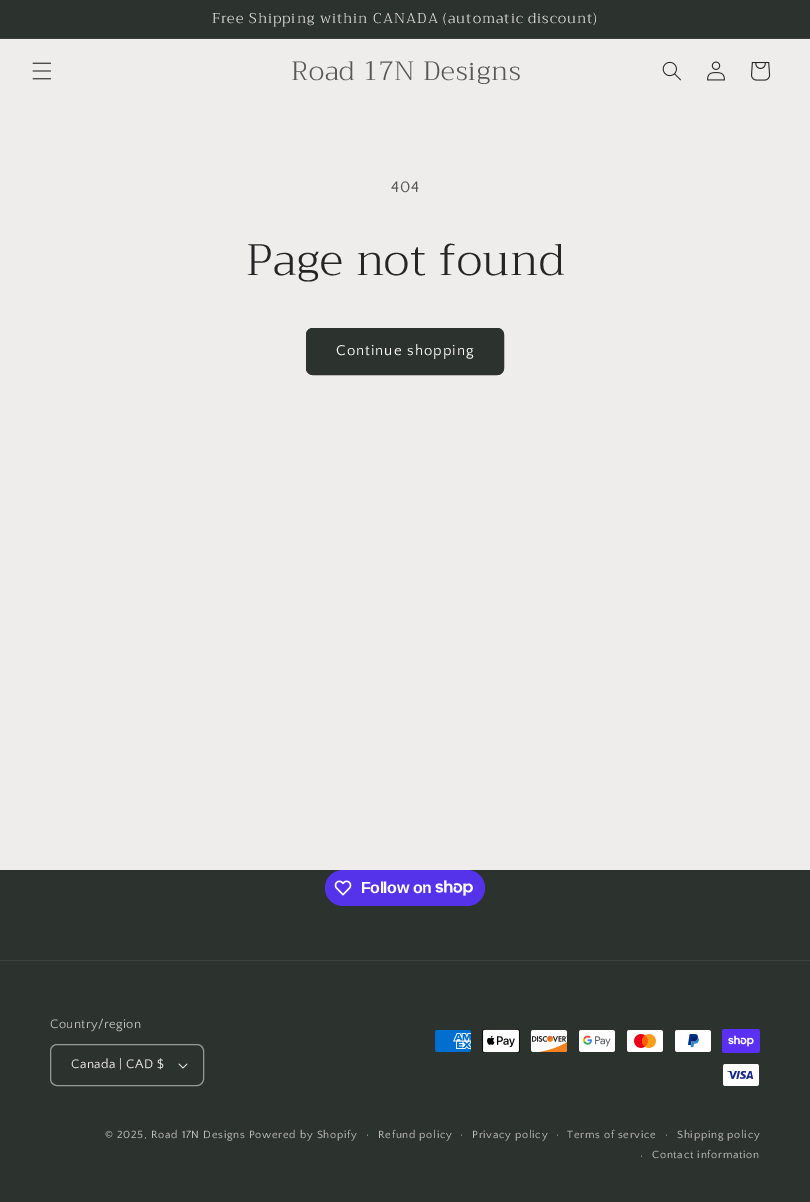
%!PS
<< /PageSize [810 1202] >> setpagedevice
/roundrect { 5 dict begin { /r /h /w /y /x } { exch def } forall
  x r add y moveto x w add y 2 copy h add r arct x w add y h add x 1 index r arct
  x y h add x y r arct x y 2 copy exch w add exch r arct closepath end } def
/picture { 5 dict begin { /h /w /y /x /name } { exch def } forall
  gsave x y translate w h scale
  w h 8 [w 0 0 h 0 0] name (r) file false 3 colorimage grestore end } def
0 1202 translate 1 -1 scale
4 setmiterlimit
0.937 0.925 0.925 setrgbcolor
0 0 810 1202 rectfill
0.173 0.2 0.184 setrgbcolor
0 0 810 38 rectfill
0.235 0.259 0.243 setrgbcolor
0 38 810 1 rectfill
/Trirong-Light [14.3 0 0 -14.3 0 0] selectfont
0.937 0.925 0.925 setrgbcolor
212 23 moveto 1 0 (Free Shipping within CANADA \(automatic discount\)) ashow
(img1.rgb) 32 62 20 18 picture
/Trirong-Light [26.5 0 0 -26.5 0 0] selectfont
0.345 0.341 0.341 setrgbcolor
291 80 moveto 0.7 0 (Road 17N Designs) ashow
(img2.rgb) 662 61 19 20 picture
(img3.rgb) 707 61 18 20 picture
(img4.rgb) 751 62 20 19 picture
/QuattrocentoSans-Regular [16 0 0 -16 0 0] selectfont
391 192 moveto 0.5 0 (404) ashow
/Trirong-Light [44 0 0 -44 0 0] selectfont
0.145 setgray
246 275 moveto 0.7 0 (Page not found) ashow
0.173 0.2 0.184 setrgbcolor
306 328 198 47 7 roundrect fill
306.5 328.5 197 46 6.5 roundrect stroke
/QuattrocentoSans-Regular [15 0 0 -15 0 0] selectfont
1 setgray
336 355 moveto 1 0 (Continue shopping) ashow
0.173 0.2 0.184 setrgbcolor
0 870 810 332 rectfill
0.329 0.2 0.922 setrgbcolor
325 870 160 36 18 roundrect fill
(img5.rgb) 334 880 18 16 picture
/LiberationSans-Bold [16 0 0 -16 0 0] selectfont
1 setgray
361 893 moveto -0.5 0 (Follow on) ashow
(img6.rgb) 435 880 38 16 picture
0.235 0.259 0.243 setrgbcolor
0 960 810 1 rectfill
/QuattrocentoSans-Regular [13 0 0 -13 0 0] selectfont
0.745 0.745 0.741 setrgbcolor
50 1028 moveto 0.4 0 (Country/region) ashow
(img7.rgb) 178 1063 10 6 picture
0.592 0.6 0.592 setrgbcolor
50.5 1044.5 153 41 6.5 roundrect stroke
0.937 0.925 0.925 setrgbcolor
71 1068 moveto 0.4 0 (Canada | CAD $) ashow
(img8.rgb) 435 1030 36 22 picture
(img9.rgb) 482 1029 38 24 picture
(img10.rgb) 531 1030 36 22 picture
(img11.rgb) 579 1030 36 22 picture
(img12.rgb) 627 1030 36 22 picture
(img13.rgb) 675 1030 36 22 picture
(img14.rgb) 722 1029 38 24 picture
(img15.rgb) 723 1064 36 22 picture
/QuattrocentoSans-Regular [11 0 0 -11 0 0] selectfont
0.745 0.745 0.741 setrgbcolor
105 1138 moveto 0.7 0 (© 2025, Road 17N Designs Powered by Shopify) ashow
/QuattrocentoSans-Regular [12 0 0 -12 0 0] selectfont
366 1138 moveto 0.7 0 (·) ashow
/QuattrocentoSans-Regular [11 0 0 -11 0 0] selectfont
378 1138 moveto 0.7 0 (Refund policy) ashow
/QuattrocentoSans-Regular [12 0 0 -12 0 0] selectfont
460 1138 moveto 0.7 0 (·) ashow
/QuattrocentoSans-Regular [11 0 0 -11 0 0] selectfont
472 1138 moveto 0.7 0 (Privacy policy) ashow
/QuattrocentoSans-Regular [12 0 0 -12 0 0] selectfont
556 1138 moveto 0.7 0 (·) ashow
/QuattrocentoSans-Regular [11 0 0 -11 0 0] selectfont
567 1138 moveto 0.7 0 (Terms of service) ashow
/QuattrocentoSans-Regular [12 0 0 -12 0 0] selectfont
665 1138 moveto 0.7 0 (·) ashow
/QuattrocentoSans-Regular [11 0 0 -11 0 0] selectfont
677 1138 moveto 0.7 0 (Shipping policy) ashow
/QuattrocentoSans-Regular [12 0 0 -12 0 0] selectfont
640 1159 moveto 0.7 0 (·) ashow
/QuattrocentoSans-Regular [11 0 0 -11 0 0] selectfont
652 1158 moveto 0.7 0 (Contact information) ashow
showpage
